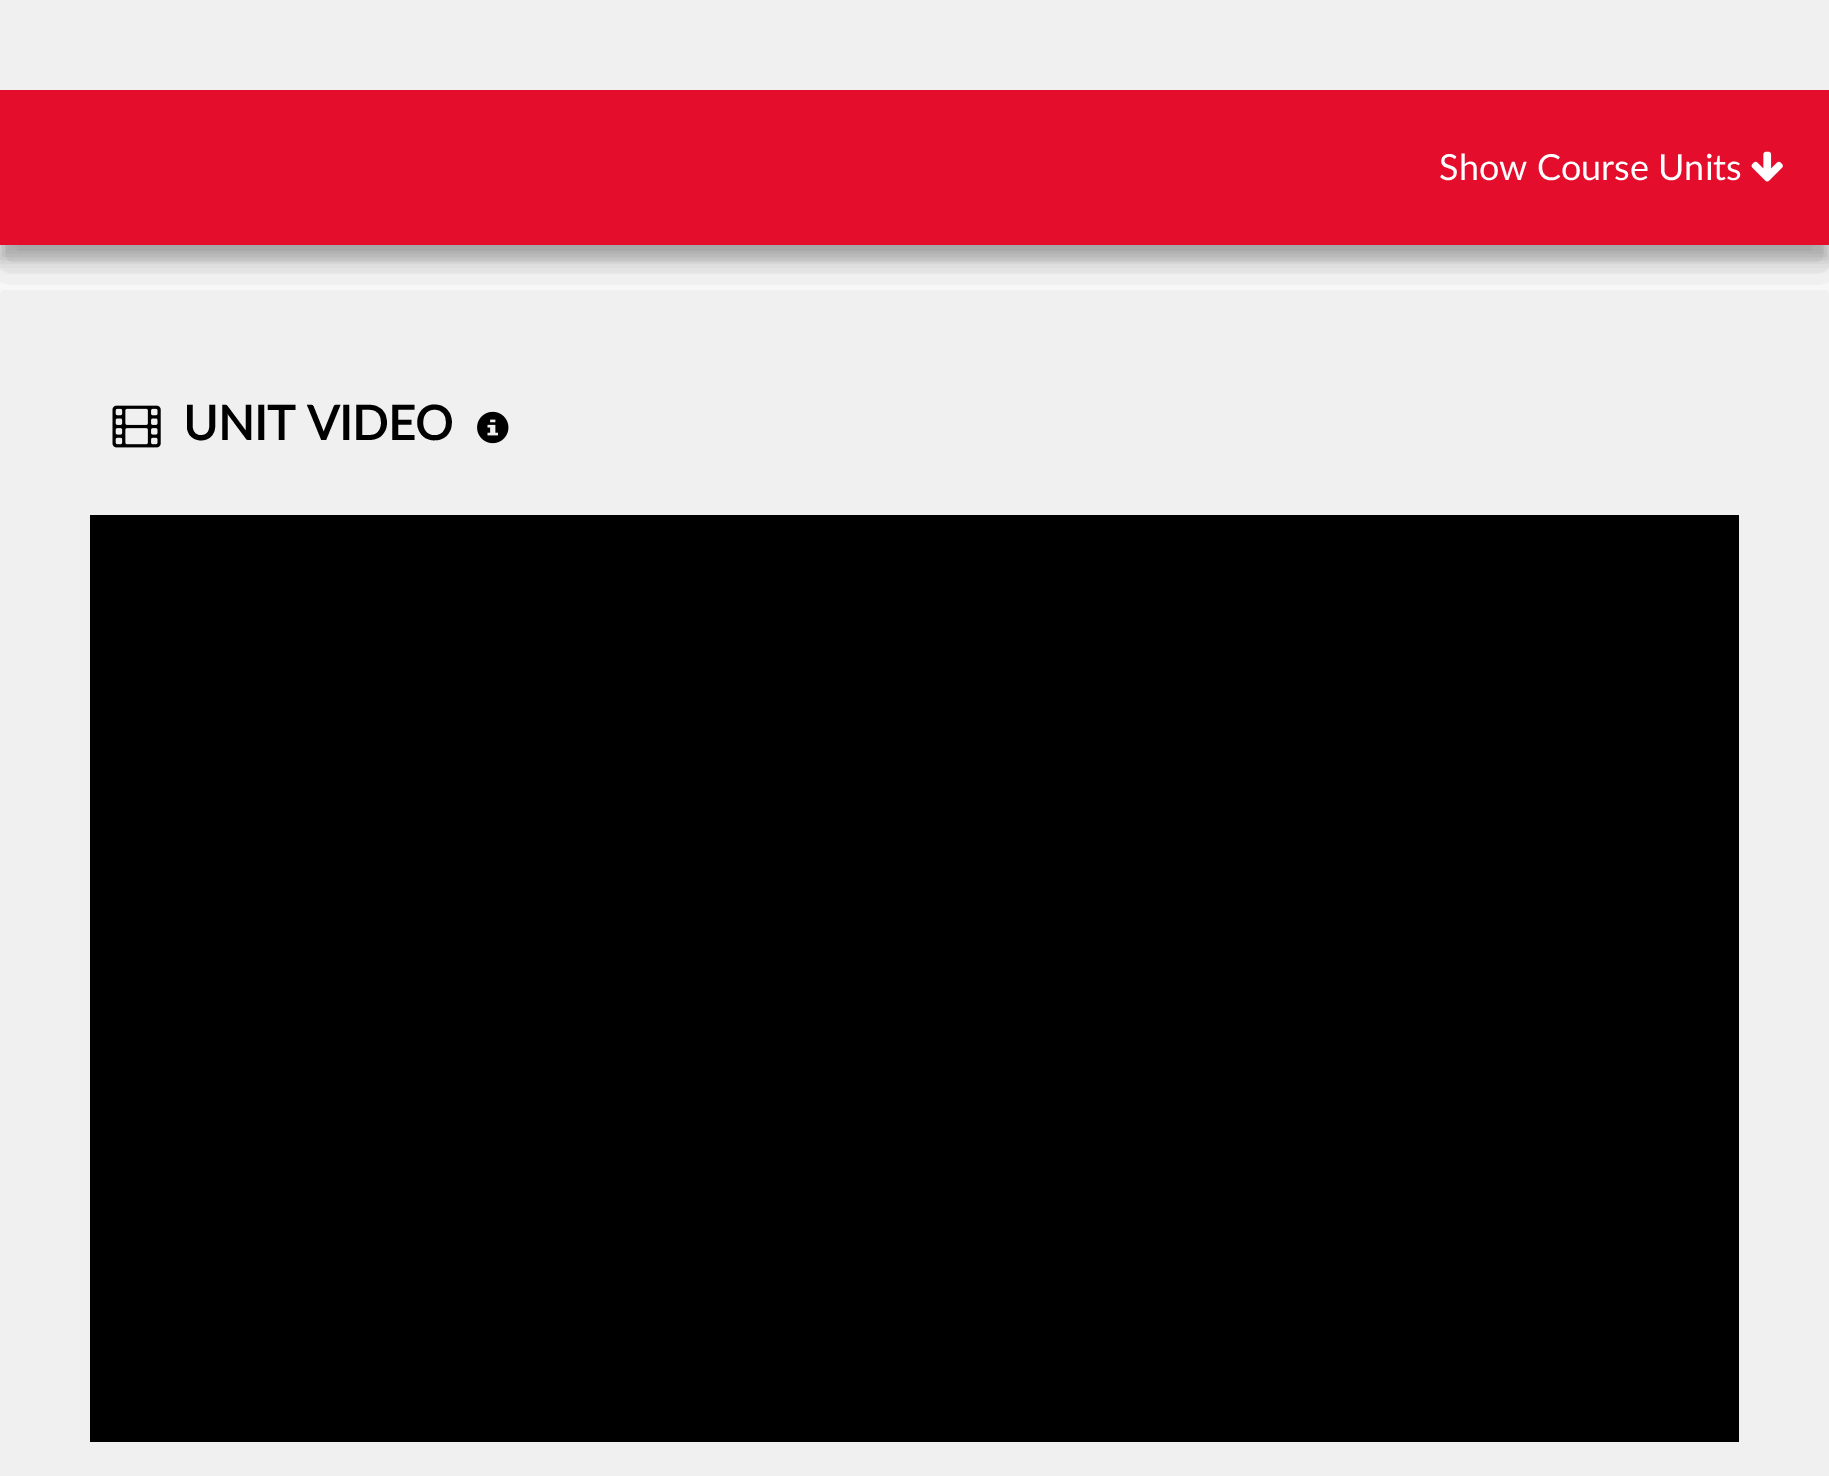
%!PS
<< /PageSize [1829 1476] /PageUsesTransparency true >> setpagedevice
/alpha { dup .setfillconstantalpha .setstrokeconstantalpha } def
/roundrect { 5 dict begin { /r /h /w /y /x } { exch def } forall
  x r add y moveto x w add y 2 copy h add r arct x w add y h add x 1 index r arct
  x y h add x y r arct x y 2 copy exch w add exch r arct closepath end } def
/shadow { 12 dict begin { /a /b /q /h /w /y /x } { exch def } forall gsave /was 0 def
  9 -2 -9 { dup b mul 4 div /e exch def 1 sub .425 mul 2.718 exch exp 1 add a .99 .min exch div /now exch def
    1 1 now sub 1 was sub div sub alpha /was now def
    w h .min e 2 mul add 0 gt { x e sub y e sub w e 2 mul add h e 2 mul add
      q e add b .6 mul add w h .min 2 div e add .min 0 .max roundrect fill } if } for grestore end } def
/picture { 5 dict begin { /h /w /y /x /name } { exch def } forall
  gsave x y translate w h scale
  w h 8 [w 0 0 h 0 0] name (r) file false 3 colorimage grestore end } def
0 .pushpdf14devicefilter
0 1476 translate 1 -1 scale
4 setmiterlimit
1 setgray
0 0 1829 1476 rectfill
0 setgray
0 -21 1829 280 0 7 0.23 shadow
0 -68 1829 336 0 22.5 0.19 shadow
0.941 setgray
0 0 1829 90 rectfill
0.894 0.051 0.173 setrgbcolor
0 90 1829 155 rectfill
/Lato-Regular [36 0 0 -36 0 0] selectfont
1 setgray
1439 180 moveto (Show Course Units) show
(img1.rgb) 1751 151 32 31 picture
0.941 setgray
0 290 1829 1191 5 roundrect fill
(img2.rgb) 112 405 49 43 picture
/Lato-Bold [47.25 0 0 -47.25 0 0] selectfont
0 setgray
183 440 moveto (UNIT VIDEO) show
(img3.rgb) 477 411 32 33 picture
90 515 1649 927 rectfill
.poppdf14devicefilter showpage
